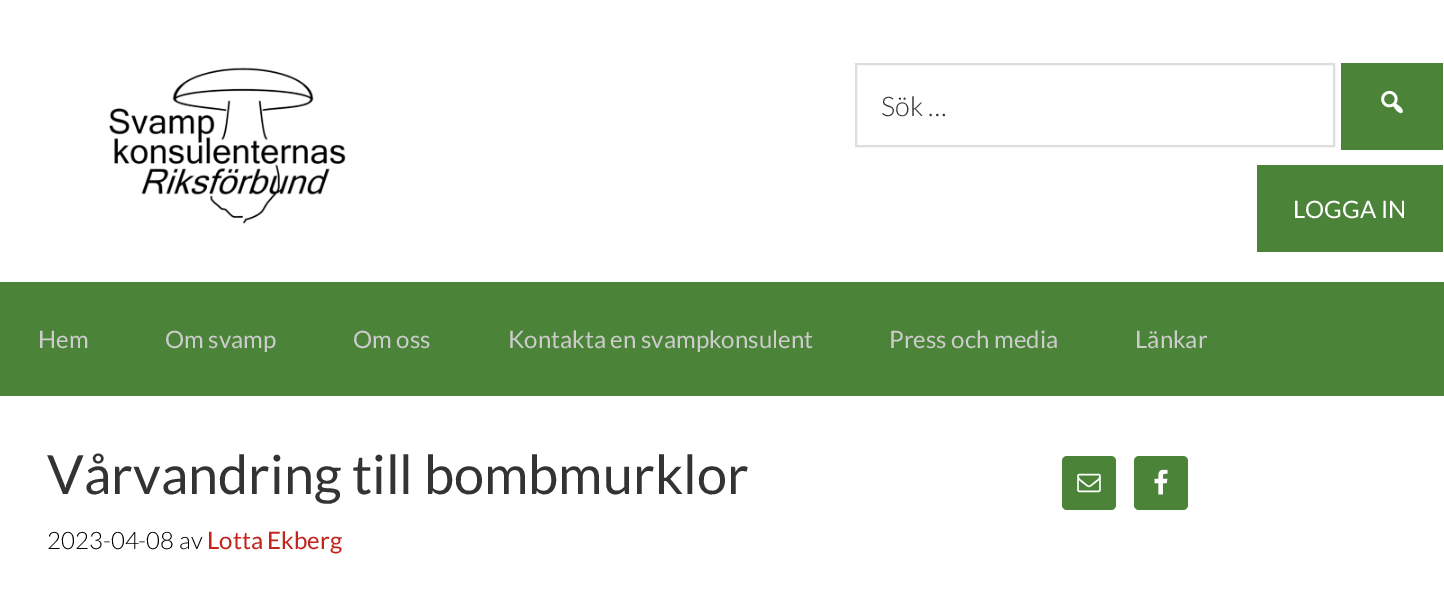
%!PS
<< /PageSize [1444 602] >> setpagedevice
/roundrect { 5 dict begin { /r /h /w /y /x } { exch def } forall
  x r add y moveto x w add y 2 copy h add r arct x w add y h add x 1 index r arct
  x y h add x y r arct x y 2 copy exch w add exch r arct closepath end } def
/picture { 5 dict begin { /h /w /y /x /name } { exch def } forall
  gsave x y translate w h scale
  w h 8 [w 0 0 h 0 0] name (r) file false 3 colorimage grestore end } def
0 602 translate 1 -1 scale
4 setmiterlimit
1 setgray
0 0 1444 602 rectfill
(img1.rgb) 109 67 237 157 picture
0.867 setgray
2 setlinewidth
856 64 478 82 rectstroke
/Lato-Light [27 0 0 -27 0 0] selectfont
0.2 setgray
881 116 moveto (Sök …) show
0.294 0.518 0.224 setrgbcolor
1341 63 102 87 rectfill
(img2.rgb) 1381 90 22 24 picture
1257 165 186 87 rectfill
/Lato-Regular [24 0 0 -24 0 0] selectfont
1 setgray
1293 218 moveto (LOGGA IN) show
0.294 0.518 0.224 setrgbcolor
0 282 1444 114 rectfill
0.8 setgray
38 348 moveto (Hem) show
165 348 moveto (Om svamp) show
353 348 moveto (Om oss) show
508 348 moveto (Kontakta en svampkonsulent) show
889 348 moveto (Press och media) show
1135 348 moveto (Länkar) show
/Lato-Regular [54 0 0 -54 0 0] selectfont
0.2 setgray
47 494 moveto (Vårvandring till bombmurklor) show
/Lato-Light [24 0 0 -24 0 0] selectfont
0 setgray
47 549 moveto (2023-04-08 av) show
/Lato-Regular [24 0 0 -24 0 0] selectfont
0.765 0.145 0.114 setrgbcolor
207 549 moveto (Lotta Ekberg) show
0.294 0.518 0.224 setrgbcolor
1062 456 54 54 5 roundrect fill
(img3.rgb) 1077 473 24 20 picture
1134 456 54 54 5 roundrect fill
(img4.rgb) 1154 469 14 26 picture
showpage
